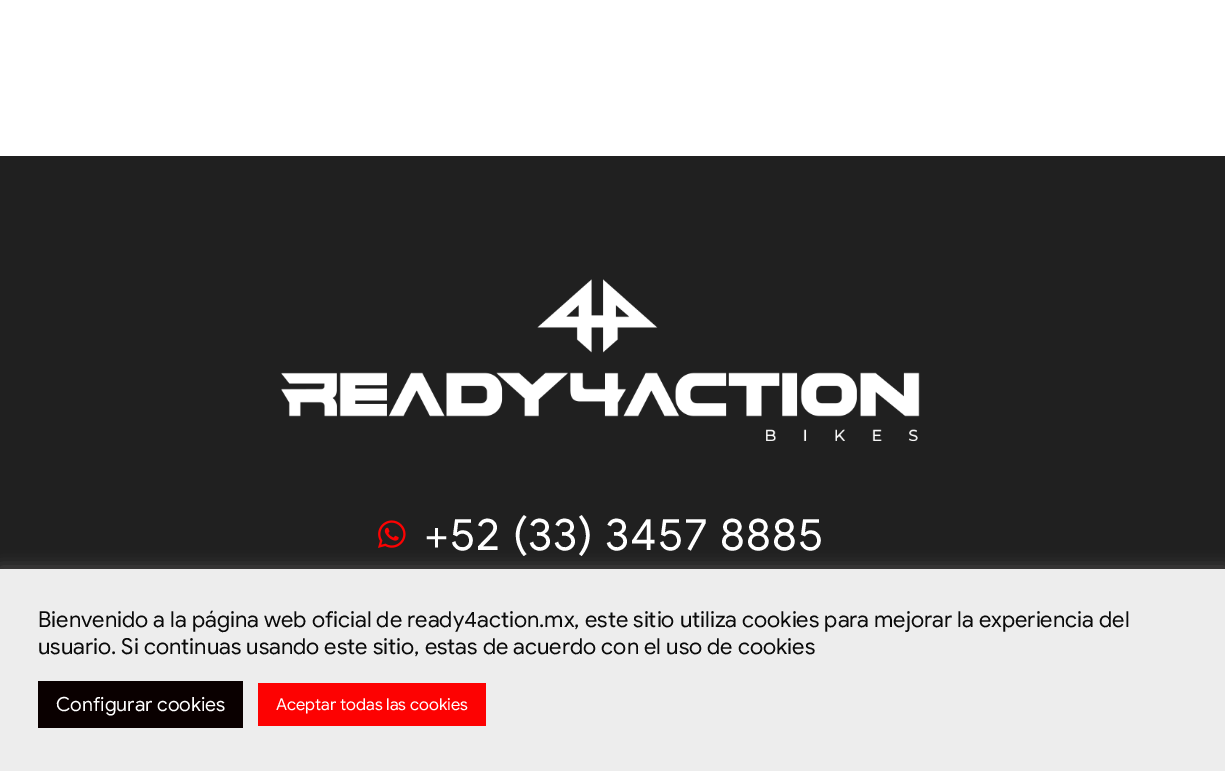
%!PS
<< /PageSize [1225 771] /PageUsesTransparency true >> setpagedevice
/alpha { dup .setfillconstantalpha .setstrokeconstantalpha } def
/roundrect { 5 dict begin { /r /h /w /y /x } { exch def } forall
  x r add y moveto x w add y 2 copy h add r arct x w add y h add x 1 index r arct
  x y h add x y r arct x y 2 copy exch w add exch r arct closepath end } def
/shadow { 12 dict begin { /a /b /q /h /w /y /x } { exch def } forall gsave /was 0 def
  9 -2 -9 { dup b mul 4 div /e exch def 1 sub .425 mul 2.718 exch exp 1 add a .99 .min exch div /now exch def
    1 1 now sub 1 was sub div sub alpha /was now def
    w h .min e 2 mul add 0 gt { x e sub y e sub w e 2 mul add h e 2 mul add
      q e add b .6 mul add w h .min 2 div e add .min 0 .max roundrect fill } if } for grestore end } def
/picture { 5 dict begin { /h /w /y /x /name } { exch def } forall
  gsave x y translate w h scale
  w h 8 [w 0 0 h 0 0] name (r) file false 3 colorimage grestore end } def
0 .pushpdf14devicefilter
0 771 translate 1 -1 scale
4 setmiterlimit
1 setgray
0 0 1225 771 rectfill
0.125 setgray
0 156 1225 413 rectfill
(img1.rgb) 281 279 639 163 picture
(img2.rgb) 378 520 28 28 picture
/GoogleSans-Regular [45 0 0 -45 0 0] selectfont
1 setgray
424 550 moveto 1 0 (+52 \(33\) 3457 8885) ashow
0.675 0.671 0.671 setrgbcolor
0 567 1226 203 0 7.5 0.3 shadow
0.929 setgray
0 569 1225 202 rectfill
/GoogleSans-Regular [22 0 0 -22 0 0] selectfont
0.039 setgray
38 627 moveto (Bienvenido a la página web oficial de ready4action.mx, este sitio utiliza cookies para mejorar la experiencia del) show
38 654 moveto (usuario. Si continuas usando este sitio, estas de acuerdo con el uso de cookies) show
0.039 0 0 setrgbcolor
38 681 205 47 rectfill
/GoogleSans-Regular [19.5 0 0 -19.5 0 0] selectfont
1 setgray
56 711 moveto (Configurar cookies) show
0.992 0.008 0.008 setrgbcolor
258 683 228 43 rectfill
/GoogleSans-Regular [16.5 0 0 -16.5 0 0] selectfont
1 setgray
276 710 moveto (Aceptar todas las cookies) show
.poppdf14devicefilter showpage
